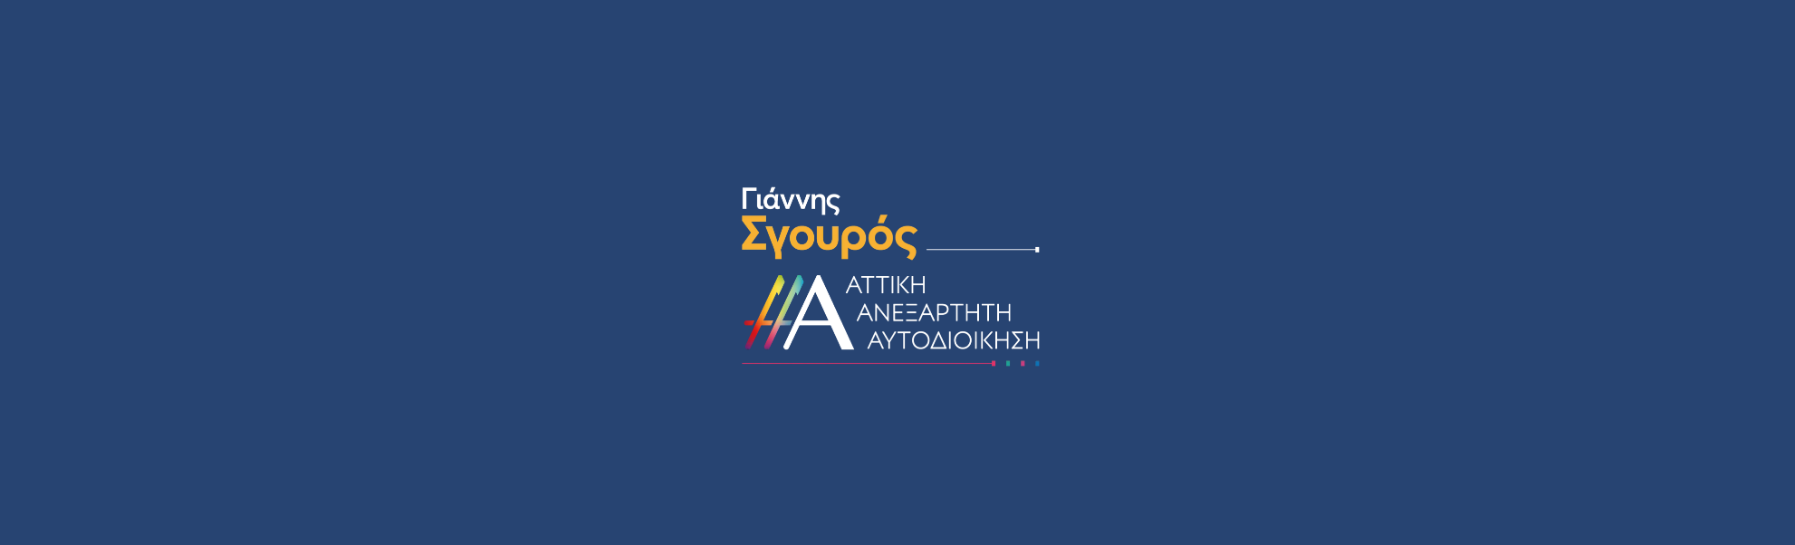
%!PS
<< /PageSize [1795 545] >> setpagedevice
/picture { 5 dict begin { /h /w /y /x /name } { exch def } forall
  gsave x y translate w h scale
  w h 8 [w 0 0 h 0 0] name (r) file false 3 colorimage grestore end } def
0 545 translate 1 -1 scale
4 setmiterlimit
0.153 0.267 0.447 setrgbcolor
0 0 1795 545 rectfill
(img1.rgb) 741 186 299 181 picture
showpage
